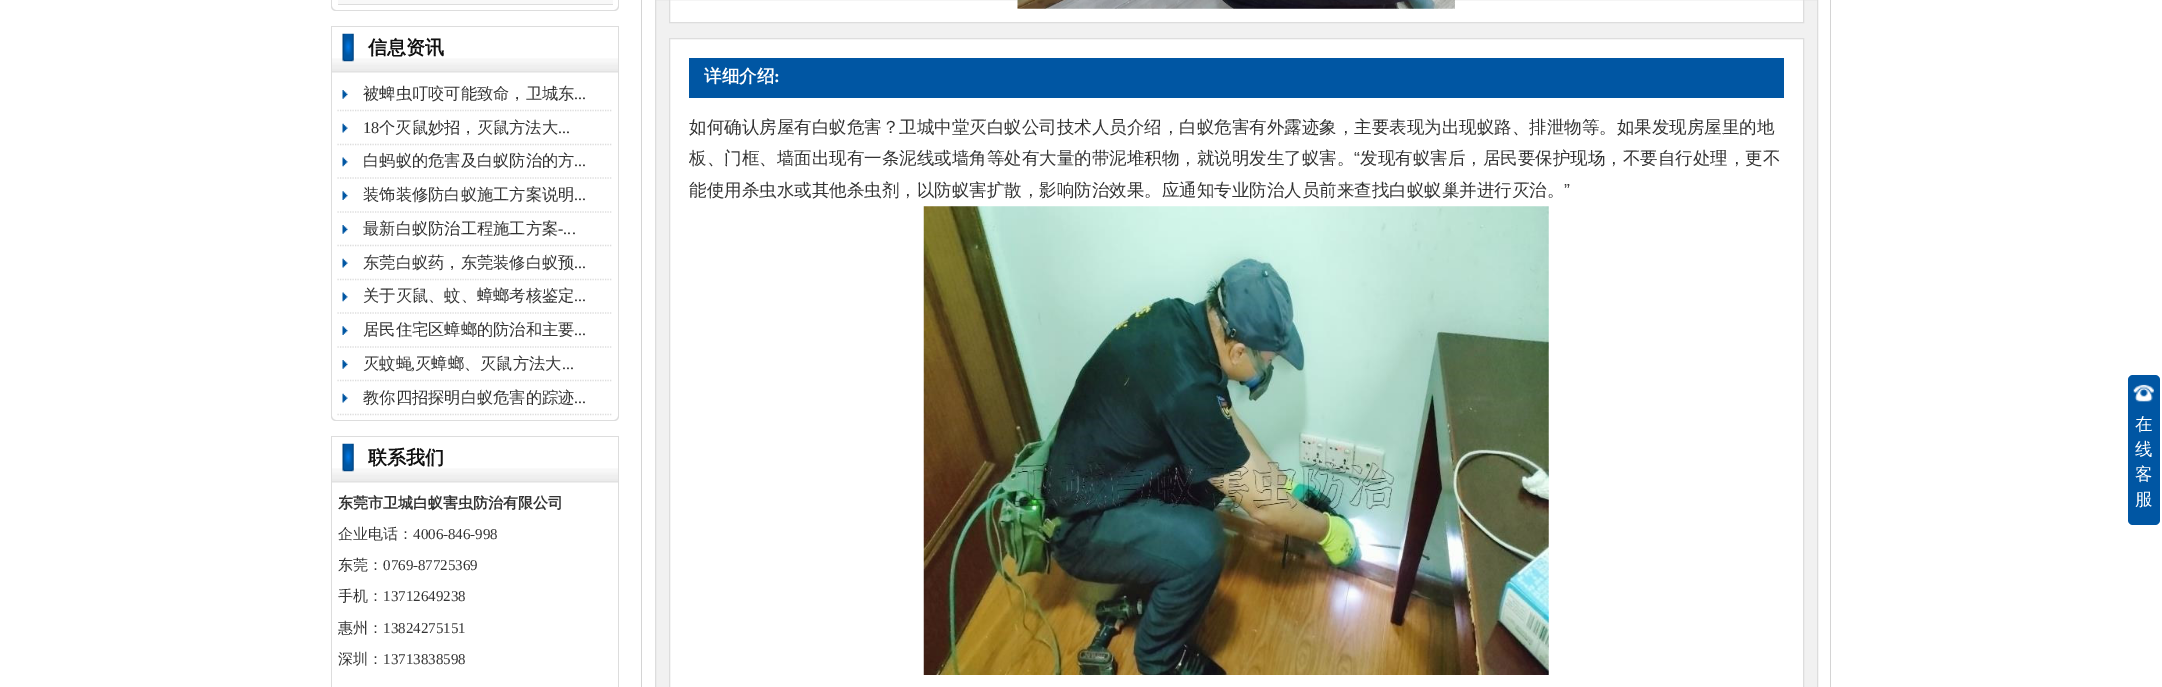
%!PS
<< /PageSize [2162 687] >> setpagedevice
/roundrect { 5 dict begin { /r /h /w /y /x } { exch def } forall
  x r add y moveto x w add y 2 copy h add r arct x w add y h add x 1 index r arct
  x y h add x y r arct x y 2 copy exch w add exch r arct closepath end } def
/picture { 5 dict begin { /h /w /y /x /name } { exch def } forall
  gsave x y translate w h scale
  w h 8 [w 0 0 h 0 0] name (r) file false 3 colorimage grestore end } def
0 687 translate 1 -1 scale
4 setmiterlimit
1 setgray
0 0 2162 687 rectfill
0.867 setgray
newpath 331 -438 moveto 619 -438 lineto 619 6 lineto 619 9 617 11 614 11 curveto 336 11 lineto 333 11 331 9 331 6 curveto closepath 332 -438 moveto 618 -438 lineto 618 6 lineto 618 8 616 10 614 10 curveto 336 10 lineto 334 10 332 8 332 6 curveto closepath eofill
0.973 setgray
338 0 275 4 rectfill
0.867 setgray
338 4 275 1 rectfill
(img1.rgb) 332 58 286 15 picture
331 26 288 1 rectfill
618 26 1 47 rectfill
331 26 1 47 rectfill
(img2.rgb) 342 33 12 29 picture
/WenQuanYiZenHei-Bold [19 0 0 -19 0 0] selectfont
0.067 setgray
368 54 moveto (信息资讯) show
0.867 setgray
newpath 331 72 moveto 619 72 lineto 619 416 lineto 619 419 617 421 614 421 curveto 336 421 lineto 333 421 331 419 331 416 curveto closepath 332 72 moveto 618 72 lineto 618 416 lineto 618 418 616 420 614 420 curveto 336 420 lineto 334 420 332 418 332 416 curveto closepath eofill
(img3.rgb) 342 90 6 9 picture
1.2 setlinewidth
[1.25 1.25] 0 setdash
newpath 337.5 110.5 moveto 612.5 110.5 lineto stroke
/WenQuanYiZenHei-Medium [16.25 0 0 -16.25 0 0] selectfont
0.2 setgray
363 99 moveto (被蜱虫叮咬可能致命，卫城东) show
/LiberationSerif-Regular [16.25 0 0 -16.25 0 0] selectfont
574 99 moveto (...) show
(img4.rgb) 342 123 6 10 picture
0.867 setgray
newpath 337.5 144.5 moveto 612.5 144.5 lineto stroke
0.2 setgray
363 133 moveto (18) show
/WenQuanYiZenHei-Medium [16.25 0 0 -16.25 0 0] selectfont
379 133 moveto (个灭鼠妙招，灭鼠方法大) show
/LiberationSerif-Regular [16.25 0 0 -16.25 0 0] selectfont
558 133 moveto (...) show
(img5.rgb) 342 157 6 10 picture
0.867 setgray
newpath 337.5 178 moveto 612.5 178 lineto stroke
/WenQuanYiZenHei-Medium [16.25 0 0 -16.25 0 0] selectfont
0.2 setgray
363 166 moveto (白蚂蚁的危害及白蚁防治的方) show
/LiberationSerif-Regular [16.25 0 0 -16.25 0 0] selectfont
574 166 moveto (...) show
(img6.rgb) 342 191 6 9 picture
0.867 setgray
newpath 337.5 212 moveto 612.5 212 lineto stroke
/WenQuanYiZenHei-Medium [16.25 0 0 -16.25 0 0] selectfont
0.2 setgray
363 200 moveto (装饰装修防白蚁施工方案说明) show
/LiberationSerif-Regular [16.25 0 0 -16.25 0 0] selectfont
574 200 moveto (...) show
(img3.rgb) 342 225 6 9 picture
0.867 setgray
newpath 337.5 245.5 moveto 612.5 245.5 lineto stroke
/WenQuanYiZenHei-Medium [16.25 0 0 -16.25 0 0] selectfont
0.2 setgray
363 234 moveto (最新白蚁防治工程施工方案) show
/LiberationSerif-Regular [16.25 0 0 -16.25 0 0] selectfont
558 234 moveto (-...) show
(img4.rgb) 342 258 6 10 picture
0.867 setgray
newpath 337.5 279.5 moveto 612.5 279.5 lineto stroke
/WenQuanYiZenHei-Medium [16.25 0 0 -16.25 0 0] selectfont
0.2 setgray
363 268 moveto (东莞白蚁药，东莞装修白蚁预) show
/LiberationSerif-Regular [16.25 0 0 -16.25 0 0] selectfont
574 268 moveto (...) show
(img5.rgb) 342 292 6 10 picture
0.867 setgray
newpath 337.5 313 moveto 612.5 313 lineto stroke
/WenQuanYiZenHei-Medium [16.25 0 0 -16.25 0 0] selectfont
0.2 setgray
363 301 moveto (关于灭鼠、蚊、蟑螂考核鉴定) show
/LiberationSerif-Regular [16.25 0 0 -16.25 0 0] selectfont
574 301 moveto (...) show
(img6.rgb) 342 326 6 9 picture
0.867 setgray
newpath 337.5 347 moveto 612.5 347 lineto stroke
/WenQuanYiZenHei-Medium [16.25 0 0 -16.25 0 0] selectfont
0.2 setgray
363 335 moveto (居民住宅区蟑螂的防治和主要) show
/LiberationSerif-Regular [16.25 0 0 -16.25 0 0] selectfont
574 335 moveto (...) show
(img3.rgb) 342 360 6 9 picture
0.867 setgray
newpath 337.5 380.5 moveto 612.5 380.5 lineto stroke
/WenQuanYiZenHei-Medium [16.25 0 0 -16.25 0 0] selectfont
0.2 setgray
363 369 moveto (灭蚊蝇) show
/LiberationSerif-Regular [16.25 0 0 -16.25 0 0] selectfont
411 369 moveto (,) show
/WenQuanYiZenHei-Medium [16.25 0 0 -16.25 0 0] selectfont
415 369 moveto (灭蟑螂、灭鼠方法大) show
/LiberationSerif-Regular [16.25 0 0 -16.25 0 0] selectfont
562 369 moveto (...) show
(img4.rgb) 342 393 6 10 picture
0.867 setgray
newpath 337.5 414.5 moveto 612.5 414.5 lineto stroke
/WenQuanYiZenHei-Medium [16.25 0 0 -16.25 0 0] selectfont
0.2 setgray
363 403 moveto (教你四招探明白蚁危害的踪迹) show
/LiberationSerif-Regular [16.25 0 0 -16.25 0 0] selectfont
574 403 moveto (...) show
(img1.rgb) 332 468 286 15 picture
0.867 setgray
331 436 288 1 rectfill
618 436 1 47 rectfill
331 436 1 47 rectfill
(img2.rgb) 342 443 12 29 picture
/WenQuanYiZenHei-Bold [19 0 0 -19 0 0] selectfont
0.067 setgray
368 464 moveto (联系我们) show
0.867 setgray
newpath 331 482 moveto 619 482 lineto 619 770 lineto 619 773 617 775 614 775 curveto 336 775 lineto 333 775 331 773 331 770 curveto closepath 332 482 moveto 618 482 lineto 618 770 lineto 618 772 616 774 614 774 curveto 336 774 lineto 334 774 332 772 332 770 curveto closepath eofill
/WenQuanYiZenHei-Bold [15 0 0 -15 0 0] selectfont
0.2 setgray
338 508 moveto (东莞市卫城白蚁害虫防治有限公司) show
/WenQuanYiZenHei-Medium [15 0 0 -15 0 0] selectfont
338 539 moveto (企业电话：) show
/LiberationSerif-Regular [15 0 0 -15 0 0] selectfont
413 539 moveto (4006-846-998) show
/WenQuanYiZenHei-Medium [15 0 0 -15 0 0] selectfont
338 570 moveto (东莞：) show
/LiberationSerif-Regular [15 0 0 -15 0 0] selectfont
383 570 moveto (0769-87725369) show
/WenQuanYiZenHei-Medium [15 0 0 -15 0 0] selectfont
338 601 moveto (手机：) show
/LiberationSerif-Regular [15 0 0 -15 0 0] selectfont
383 601 moveto (13712649238) show
/WenQuanYiZenHei-Medium [15 0 0 -15 0 0] selectfont
338 633 moveto (惠州：) show
/LiberationSerif-Regular [15 0 0 -15 0 0] selectfont
383 633 moveto (13824275151) show
/WenQuanYiZenHei-Medium [15 0 0 -15 0 0] selectfont
338 664 moveto (深圳：) show
/LiberationSerif-Regular [15 0 0 -15 0 0] selectfont
383 664 moveto (13713838598) show
0.831 setgray
1830 0 1 687 rectfill
641 0 1 687 rectfill
0.945 setgray
newpath 655.5 -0.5 moveto 1817.5 -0.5 lineto 1817.5 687.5 lineto 655.5 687.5 lineto closepath gsave fill grestore
0.867 setgray
1 setlinewidth
[] 0 setdash
stroke
1 setgray
newpath 669.5 -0.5 moveto 1803.5 -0.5 lineto 1803.5 22.5 lineto 669.5 22.5 lineto closepath gsave fill grestore
0.867 setgray
stroke
(img7.rgb) 1017 0 438 9 picture
1 setgray
newpath 669.5 38.5 moveto 1803.5 38.5 lineto 1803.5 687.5 lineto 669.5 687.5 lineto closepath gsave fill grestore
0.867 setgray
stroke
0 0.337 0.639 setrgbcolor
689 58 1095 40 rectfill
/WenQuanYiZenHei-Bold [17.5 0 0 -17.5 0 0] selectfont
1 setgray
704 82 moveto (详细介绍) show
/LiberationSerif-Bold [17.5 0 0 -17.5 0 0] selectfont
774 82 moveto (:) show
/WenQuanYiZenHei-Medium [17.5 0 0 -17.5 0 0] selectfont
0.2 setgray
689 133 moveto (如何确认房屋有白蚁危害？卫城中堂灭白蚁公司技术人员介绍，白蚁危害有外露迹象，主要表现为出现蚁路、排泄物等。如果发现房屋里的地) show
689 164 moveto (板、门框、墙面出现有一条泥线或墙角等处有大量的带泥堆积物，就说明发生了蚁害。) show
/LiberationSans-Regular [17.5 0 0 -17.5 0 0] selectfont
1354 164 moveto (“) show
/WenQuanYiZenHei-Medium [17.5 0 0 -17.5 0 0] selectfont
1360 164 moveto (发现有蚁害后，居民要保护现场，不要自行处理，更不) show
689 196 moveto (能使用杀虫水或其他杀虫剂，以防蚁害扩散，影响防治效果。应通知专业防治人员前来查找白蚁蚁巢并进行灭治。) show
/LiberationSans-Regular [17.5 0 0 -17.5 0 0] selectfont
1564 196 moveto (”) show
(img8.rgb) 923 206 626 469 picture
0 0.337 0.639 setrgbcolor
2128 375 32 150 5 roundrect fill
(img9.rgb) 2133 384 21 18 picture
/WenQuanYiZenHei-Medium [17.5 0 0 -17.5 0 0] selectfont
1 setgray
2135 430 moveto (在) show
2135 455 moveto (线) show
2135 480 moveto (客) show
2135 505 moveto (服) show
showpage
